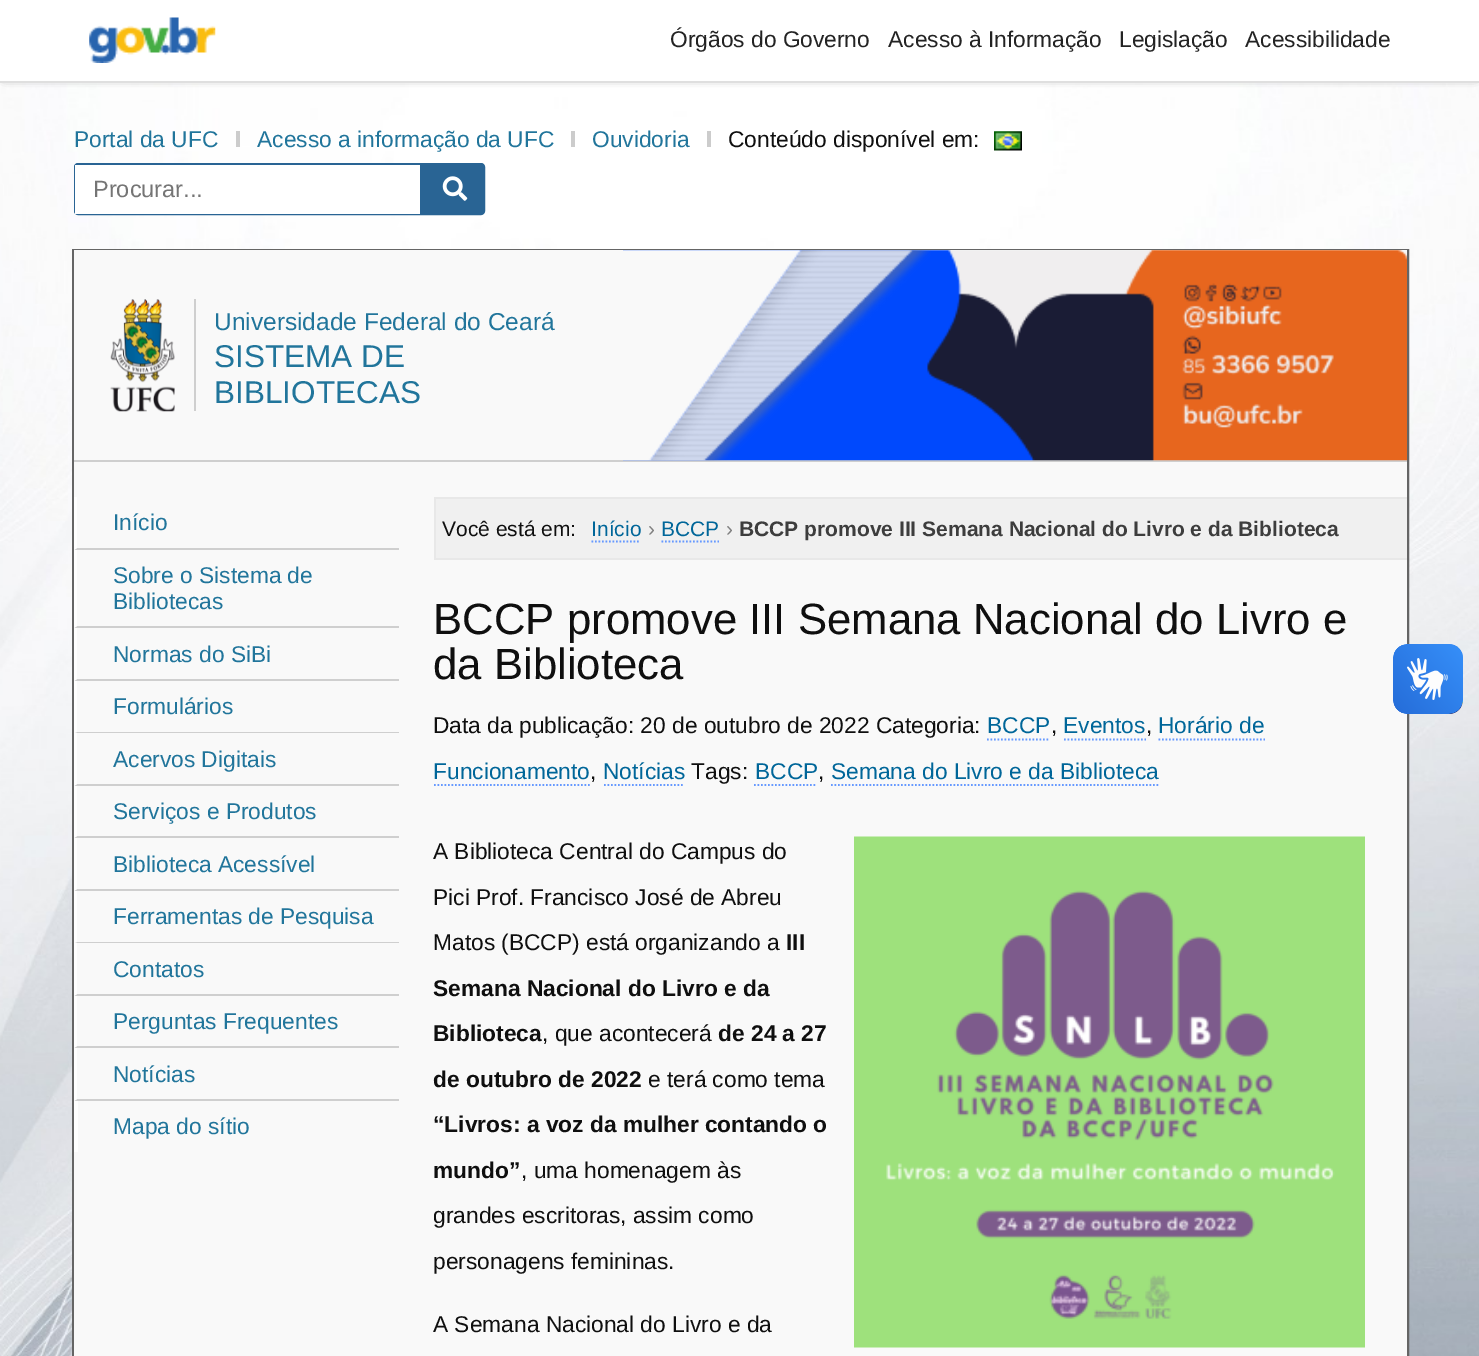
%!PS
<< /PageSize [1479 1356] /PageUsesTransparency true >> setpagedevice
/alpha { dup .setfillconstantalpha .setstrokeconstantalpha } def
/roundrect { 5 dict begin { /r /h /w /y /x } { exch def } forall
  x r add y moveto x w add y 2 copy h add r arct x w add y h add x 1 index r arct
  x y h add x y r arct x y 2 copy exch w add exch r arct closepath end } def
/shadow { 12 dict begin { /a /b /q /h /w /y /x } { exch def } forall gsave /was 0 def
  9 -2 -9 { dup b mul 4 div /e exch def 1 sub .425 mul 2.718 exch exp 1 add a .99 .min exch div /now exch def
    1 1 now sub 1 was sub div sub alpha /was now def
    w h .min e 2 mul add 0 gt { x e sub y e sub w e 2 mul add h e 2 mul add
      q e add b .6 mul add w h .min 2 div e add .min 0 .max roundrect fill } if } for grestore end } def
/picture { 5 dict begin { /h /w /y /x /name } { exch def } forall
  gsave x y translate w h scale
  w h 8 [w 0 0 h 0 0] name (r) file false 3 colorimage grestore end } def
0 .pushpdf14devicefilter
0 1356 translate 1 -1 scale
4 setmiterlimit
1 setgray
0 0 1479 1356 rectfill
(img1.rgb) 0 83 1479 1273 picture
0.2 setgray
5 5 1470 72 0 4.5 1 shadow
1 setgray
0 0 1479 81 rectfill
0.875 setgray
0 81 1479 2 rectfill
(img2.rgb) 89 17 127 46 picture
/LiberationSans-Regular [22.75 0 0 -22.75 0 0] selectfont
0.137 setgray
670 47 moveto (Órgãos do Governo) show
888 47 moveto (Acesso à Informação) show
1119 47 moveto (Legislação) show
1245 47 moveto (Acessibilidade) show
0.129 0.459 0.608 setrgbcolor
74 147 moveto (Portal da UFC) show
0.8 setgray
236 131 4 16 rectfill
0.129 0.459 0.608 setrgbcolor
257 147 moveto (Acesso a informação da UFC) show
0.8 setgray
571 131 4 16 rectfill
0.129 0.459 0.608 setrgbcolor
592 147 moveto (Ouvidoria) show
0.8 setgray
707 131 4 16 rectfill
0.059 setgray
728 147 moveto (Conteúdo disponível em:) show
(img3.rgb) 994 131 28 20 picture
0.161 0.392 0.58 setrgbcolor
2 setlinewidth
75 164 409 50 3 roundrect stroke
420 165 63 48 rectfill
1 setgray
75 165 345 49 rectfill
/LiberationSans-Regular [23.5 0 0 -23.5 0 0] selectfont
0.459 setgray
93 197 moveto (Procurar...) show
(img4.rgb) 442 176 26 25 picture
0.396 setgray
73 250 1335 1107 rectstroke
0.976 setgray
74 250 1333 1106 rectfill
0.812 setgray
74 460 1333 2 rectfill
194 299 2 112 rectfill
(img5.rgb) 110 299 65 113 picture
/LiberationSans-Regular [24.5 0 0 -24.5 0 0] selectfont
0.129 0.459 0.608 setrgbcolor
214 330 moveto (Universidade Federal do Ceará) show
/LiberationSans-Regular [31.5 0 0 -31.5 0 0] selectfont
214 367 moveto (SISTEMA DE) show
214 403 moveto (BIBLIOTECAS) show
(img6.rgb) 623 250 784 211 picture
(img7.rgb) 623 250 308 211 picture
0.812 setgray
newpath 399 550 moveto 74 550 lineto 77 548 lineto 399 548 lineto closepath fill
1 setgray
newpath 74 550 moveto 74 497 lineto 77 497 lineto 77 548 lineto closepath fill
/LiberationSans-Regular [22.75 0 0 -22.75 0 0] selectfont
0.129 0.459 0.608 setrgbcolor
113 530 moveto (Início) show
0.812 setgray
newpath 399 628 moveto 74 628 lineto 77 626 lineto 399 626 lineto closepath fill
1 setgray
newpath 74 628 moveto 74 550 lineto 77 550 lineto 77 626 lineto closepath fill
0.129 0.459 0.608 setrgbcolor
113 583 moveto (Sobre o Sistema de) show
113 609 moveto (Bibliotecas) show
0.812 setgray
newpath 399 681 moveto 74 681 lineto 77 679 lineto 399 679 lineto closepath fill
1 setgray
newpath 74 681 moveto 74 628 lineto 77 628 lineto 77 679 lineto closepath fill
0.129 0.459 0.608 setrgbcolor
113 662 moveto (Normas do SiBi) show
0.812 setgray
newpath 399 733 moveto 74 733 lineto 77 732 lineto 399 732 lineto closepath fill
1 setgray
newpath 74 733 moveto 74 681 lineto 77 681 lineto 77 732 lineto closepath fill
0.129 0.459 0.608 setrgbcolor
113 714 moveto (Formulários) show
0.812 setgray
newpath 399 786 moveto 74 786 lineto 77 784 lineto 399 784 lineto closepath fill
1 setgray
newpath 74 786 moveto 74 733 lineto 77 733 lineto 77 784 lineto closepath fill
0.129 0.459 0.608 setrgbcolor
113 767 moveto (Acervos Digitais) show
0.812 setgray
newpath 399 838 moveto 74 838 lineto 77 836 lineto 399 836 lineto closepath fill
1 setgray
newpath 74 838 moveto 74 786 lineto 77 786 lineto 77 836 lineto closepath fill
0.129 0.459 0.608 setrgbcolor
113 819 moveto (Serviços e Produtos) show
0.812 setgray
newpath 399 891 moveto 74 891 lineto 77 889 lineto 399 889 lineto closepath fill
1 setgray
newpath 74 891 moveto 74 838 lineto 77 838 lineto 77 889 lineto closepath fill
0.129 0.459 0.608 setrgbcolor
113 872 moveto (Biblioteca Acessível) show
0.812 setgray
newpath 399 943 moveto 74 943 lineto 77 942 lineto 399 942 lineto closepath fill
1 setgray
newpath 74 943 moveto 74 891 lineto 77 891 lineto 77 942 lineto closepath fill
0.129 0.459 0.608 setrgbcolor
113 924 moveto (Ferramentas de Pesquisa) show
0.812 setgray
newpath 399 996 moveto 74 996 lineto 77 994 lineto 399 994 lineto closepath fill
1 setgray
newpath 74 996 moveto 74 943 lineto 77 943 lineto 77 994 lineto closepath fill
0.129 0.459 0.608 setrgbcolor
113 977 moveto (Contatos) show
0.812 setgray
newpath 399 1048 moveto 74 1048 lineto 77 1046 lineto 399 1046 lineto closepath fill
1 setgray
newpath 74 1048 moveto 74 996 lineto 77 996 lineto 77 1046 lineto closepath fill
0.129 0.459 0.608 setrgbcolor
113 1029 moveto (Perguntas Frequentes) show
0.812 setgray
newpath 399 1101 moveto 74 1101 lineto 77 1099 lineto 399 1099 lineto closepath fill
1 setgray
newpath 74 1101 moveto 74 1048 lineto 77 1048 lineto 77 1099 lineto closepath fill
0.129 0.459 0.608 setrgbcolor
113 1082 moveto (Notícias) show
1 setgray
74 1101 4 51 rectfill
0.129 0.459 0.608 setrgbcolor
113 1134 moveto (Mapa do sítio) show
0.941 setgray
436 499 971 59 rectfill
0.91 setgray
434 497 973 2 rectfill
434 558 973 2 rectfill
434 497 2 63 rectfill
/LiberationSans-Regular [21 0 0 -21 0 0] selectfont
0.059 setgray
442 536 moveto (Você está em:) show
0 0.4 0.6 setrgbcolor
591 536 moveto (Início) show
0.4 0.6 1 setrgbcolor
1.8 setlinewidth
[1.75 1.75] 0 setdash
newpath 591.5 541.5 moveto 640.5 541.5 lineto stroke
0.502 setgray
648 536 moveto (›) show
0 0.4 0.6 setrgbcolor
661 536 moveto (BCCP) show
0.4 0.6 1 setrgbcolor
newpath 661.5 541.5 moveto 719 541.5 lineto stroke
0.502 setgray
726 536 moveto (›) show
/LiberationSans-Bold [21 0 0 -21 0 0] selectfont
0.239 setgray
739 536 moveto (BCCP promove III Semana Nacional do Livro e da Biblioteca) show
/LiberationSans-Regular [43.75 0 0 -43.75 0 0] selectfont
0.059 setgray
433 634 moveto (BCCP promove III Semana Nacional do Livro e) show
433 679 moveto (da Biblioteca) show
/LiberationSans-Regular [22.75 0 0 -22.75 0 0] selectfont
433 733 moveto (Data da publicação: 20 de outubro de 2022 Categoria:) show
0 0.4 0.6 setrgbcolor
987 733 moveto (BCCP) show
0.059 setgray
1051 733 moveto (,) show
0.4 0.6 1 setrgbcolor
newpath 987 739.5 moveto 1050 739.5 lineto stroke
0 0.4 0.6 setrgbcolor
1063 733 moveto (Eventos) show
0.059 setgray
1146 733 moveto (,) show
0.4 0.6 1 setrgbcolor
newpath 1064 739.5 moveto 1146 739.5 lineto stroke
newpath 1158.5 739.5 moveto 1265 739.5 lineto stroke
0 0.4 0.6 setrgbcolor
1158 733 moveto (Horário de) show
433 779 moveto (Funcionamento) show
0.059 setgray
590 779 moveto (,) show
0.4 0.6 1 setrgbcolor
newpath 434 785 moveto 590 785 lineto stroke
newpath 604 785 moveto 684 785 lineto stroke
0 0.4 0.6 setrgbcolor
603 779 moveto (Notícias) show
0.059 setgray
691 779 moveto (Tags:) show
0 0.4 0.6 setrgbcolor
755 779 moveto (BCCP) show
0.059 setgray
818 779 moveto (,) show
0.4 0.6 1 setrgbcolor
newpath 754 785 moveto 817 785 lineto stroke
newpath 831 785 moveto 1158.5 785 lineto stroke
0 0.4 0.6 setrgbcolor
831 779 moveto (Semana do Livro e da Biblioteca) show
0.059 setgray
433 859 moveto (A Biblioteca Central do Campus do) show
(img8.rgb) 854 836 511 512 picture
433 905 moveto (Pici Prof. Francisco José de Abreu) show
433 950 moveto (Matos \(BCCP\) está organizando a) show
/LiberationSans-Bold [22.75 0 0 -22.75 0 0] selectfont
786 950 moveto (III) show
433 996 moveto (Semana Nacional do Livro e da) show
433 1041 moveto (Biblioteca) show
/LiberationSans-Regular [22.75 0 0 -22.75 0 0] selectfont
542 1041 moveto (, que acontecerá) show
/LiberationSans-Bold [22.75 0 0 -22.75 0 0] selectfont
718 1041 moveto (de 24 a 27) show
433 1087 moveto (de outubro de 2022) show
/LiberationSans-Regular [22.75 0 0 -22.75 0 0] selectfont
648 1087 moveto (e terá como tema) show
/LiberationSans-Bold [22.75 0 0 -22.75 0 0] selectfont
433 1132 moveto (“Livros: a voz da mulher contando o) show
433 1178 moveto (mundo”) show
/LiberationSans-Regular [22.75 0 0 -22.75 0 0] selectfont
521 1178 moveto (, uma homenagem às) show
433 1223 moveto (grandes escritoras, assim como) show
433 1269 moveto (personagens femininas.) show
433 1332 moveto (A Semana Nacional do Livro e da) show
(img9.rgb) 1393 644 70 70 picture
(img10.rgb) 1393 644 70 70 picture
.poppdf14devicefilter showpage
